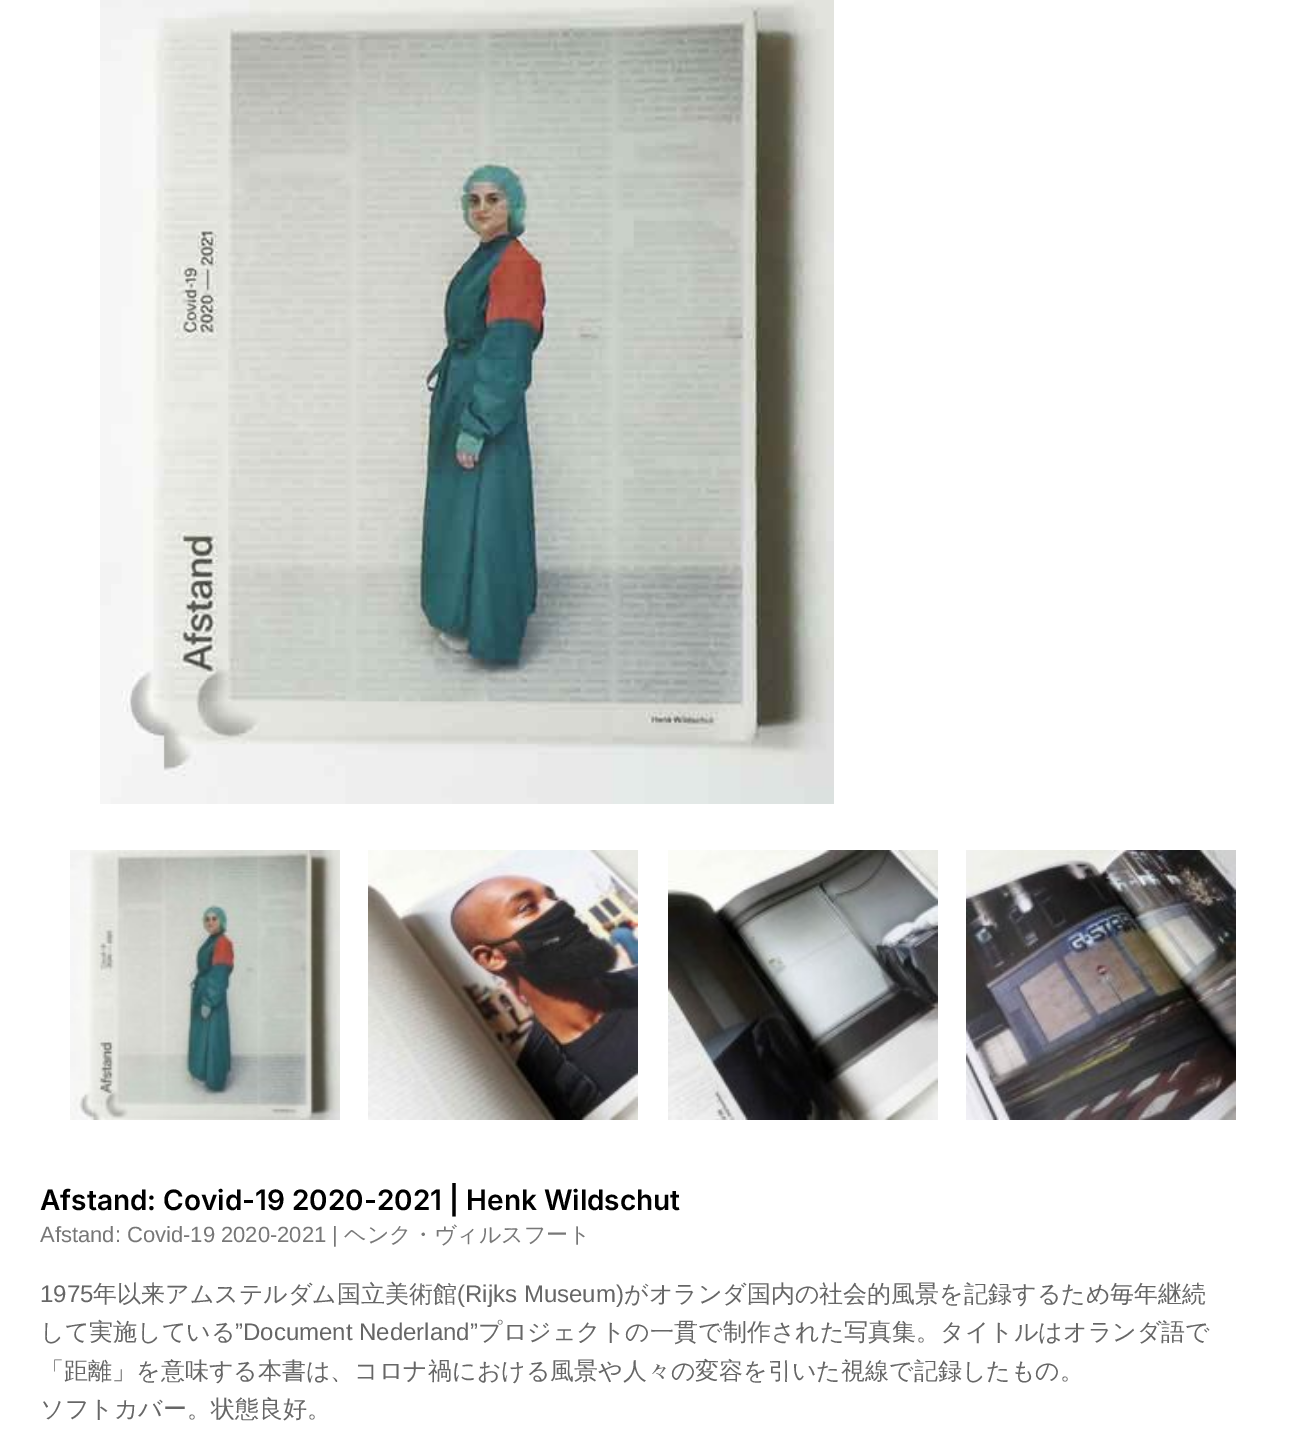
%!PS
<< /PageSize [1301 1454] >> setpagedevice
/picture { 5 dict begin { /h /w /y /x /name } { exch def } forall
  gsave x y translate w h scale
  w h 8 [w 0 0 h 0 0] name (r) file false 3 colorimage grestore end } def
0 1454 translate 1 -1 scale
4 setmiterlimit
1 setgray
0 0 1301 1454 rectfill
(img1.rgb) 100 0 734 804 picture
(img2.rgb) 70 850 270 270 picture
(img3.rgb) 368 850 270 270 picture
(img4.rgb) 668 850 270 270 picture
(img5.rgb) 966 850 270 270 picture
/Inter-SemiBold [28 0 0 -28 0 0] selectfont
0 setgray
40 1210 moveto (Afstand: Covid-19 2020-2021 | Henk Wildschut) show
/LiberationSans-Regular [22 0 0 -22 0 0] selectfont
0.467 setgray
40 1242 moveto (Afstand: Covid-19 2020-2021 |) show
/WenQuanYiZenHei-Medium [22 0 0 -22 0 0] selectfont
344 1242 moveto (ヘンク・ヴィルスフート) show
/LiberationSans-Regular [24 0 0 -24 0 0] selectfont
0.4 setgray
40 1302 moveto (1975) show
/WenQuanYiZenHei-Medium [24 0 0 -24 0 0] selectfont
93 1302 moveto (年以来アムステルダム国立美術館) show
/LiberationSans-Regular [24 0 0 -24 0 0] selectfont
457 1302 moveto (\(Rijks Museum\)) show
/WenQuanYiZenHei-Medium [24 0 0 -24 0 0] selectfont
624 1302 moveto (がオランダ国内の社会的風景を記録するため毎年継続) show
40 1340 moveto (して実施している) show
/LiberationSans-Regular [24 0 0 -24 0 0] selectfont
235 1340 moveto (”Document Nederland”) show
/WenQuanYiZenHei-Medium [24 0 0 -24 0 0] selectfont
478 1340 moveto (プロジェクトの一貫で制作された写真集。タイトルはオランダ語で) show
40 1379 moveto (「距離」を意味する本書は、コロナ禍における風景や人々の変容を引いた視線で記録したもの。) show
40 1417 moveto (ソフトカバー。状態良好。) show
showpage
